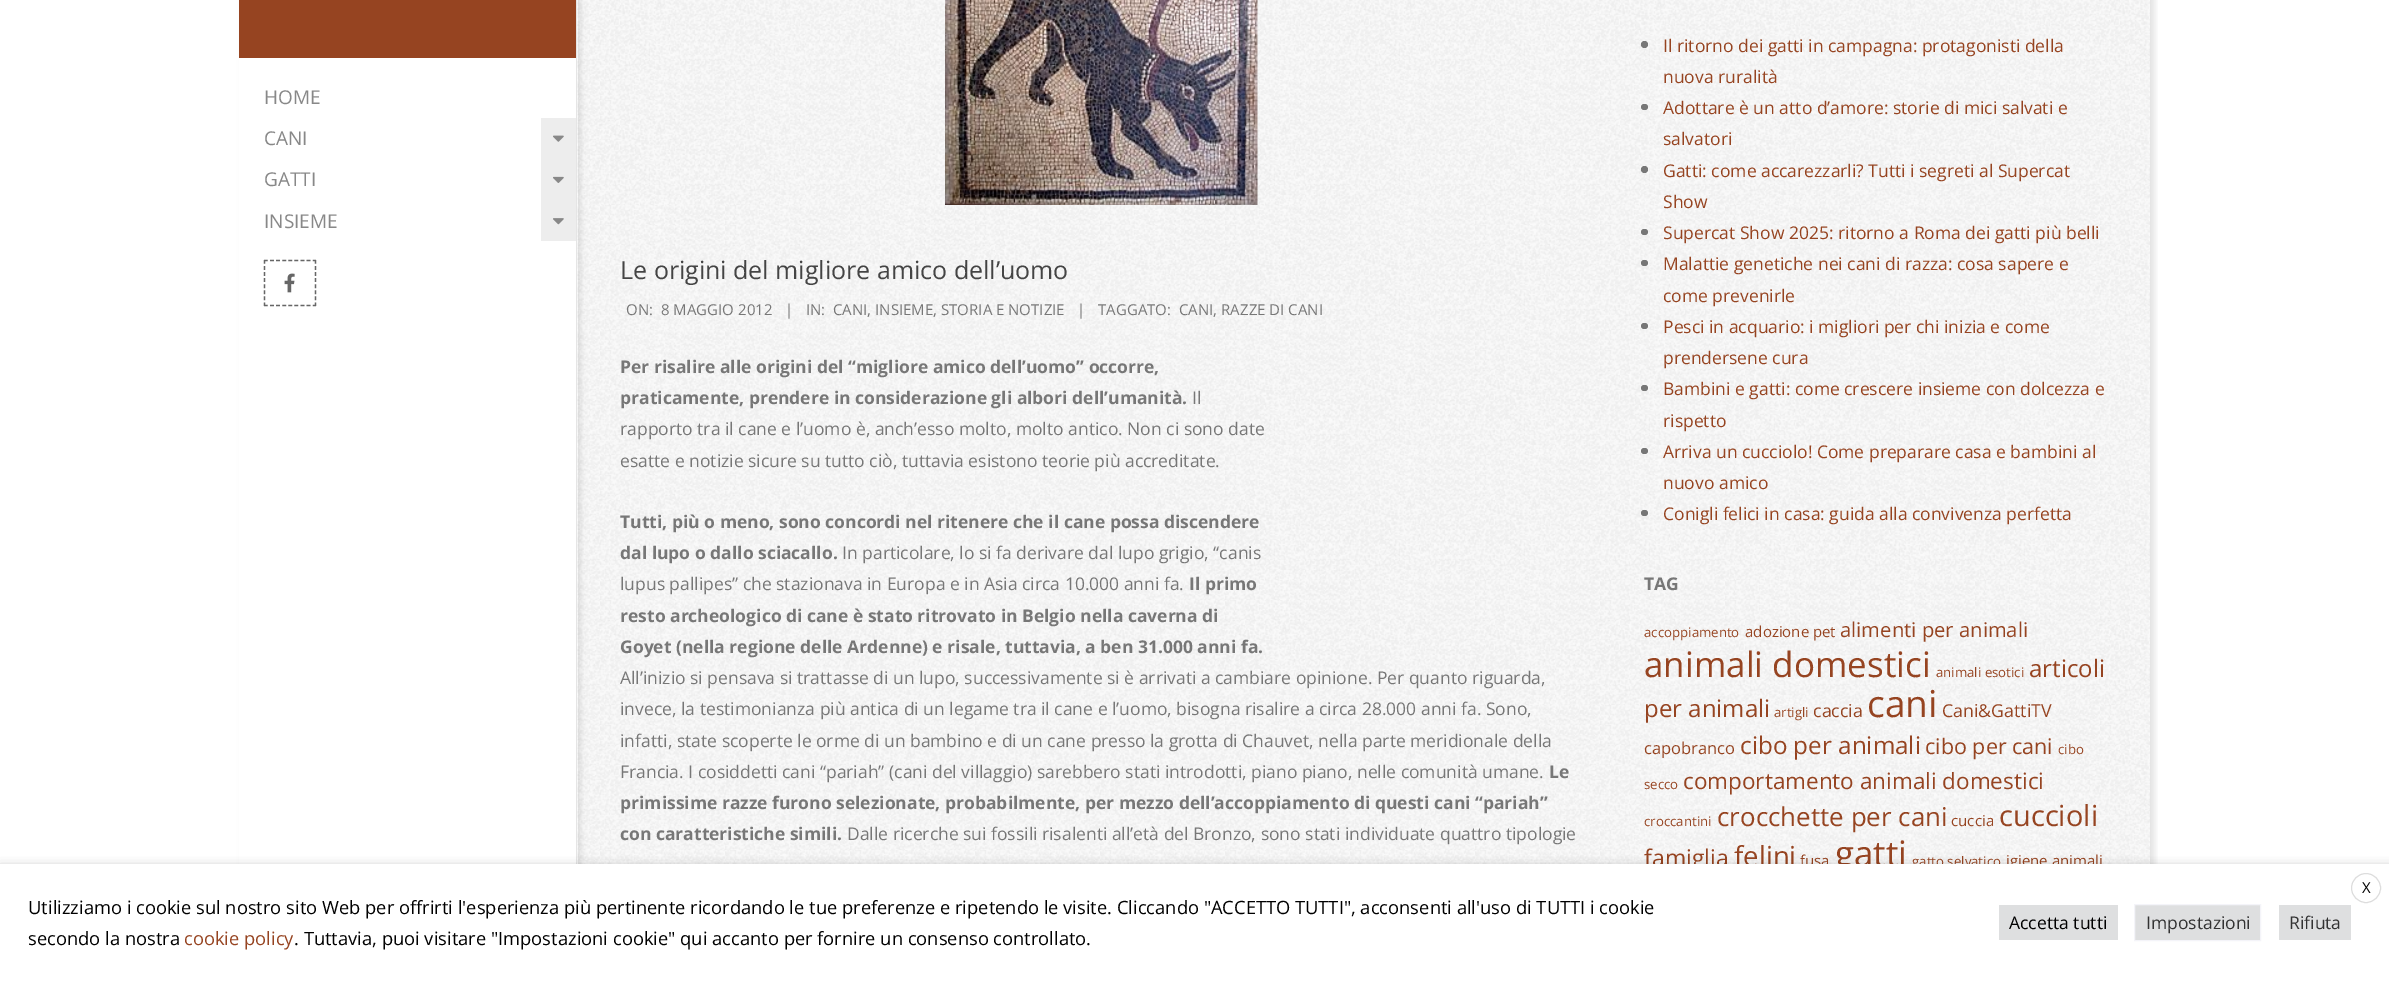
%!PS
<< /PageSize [2389 981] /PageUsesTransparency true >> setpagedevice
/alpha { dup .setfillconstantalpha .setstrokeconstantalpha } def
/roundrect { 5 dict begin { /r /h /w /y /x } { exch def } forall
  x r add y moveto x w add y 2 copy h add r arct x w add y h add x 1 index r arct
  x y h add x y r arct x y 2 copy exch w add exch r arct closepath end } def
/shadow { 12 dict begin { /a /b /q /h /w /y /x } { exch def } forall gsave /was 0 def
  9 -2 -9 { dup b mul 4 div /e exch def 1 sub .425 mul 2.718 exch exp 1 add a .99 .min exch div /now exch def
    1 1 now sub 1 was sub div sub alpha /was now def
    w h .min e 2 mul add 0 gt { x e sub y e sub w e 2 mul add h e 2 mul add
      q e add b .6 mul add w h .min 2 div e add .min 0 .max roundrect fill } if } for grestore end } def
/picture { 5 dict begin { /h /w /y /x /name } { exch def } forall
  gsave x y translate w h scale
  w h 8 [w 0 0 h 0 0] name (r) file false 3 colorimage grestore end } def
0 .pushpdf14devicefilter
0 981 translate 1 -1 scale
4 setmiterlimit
1 setgray
0 0 2389 981 rectfill
gsave
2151 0 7 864 rectclip
0 setgray
580 -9 1575 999 0 3 0.1 shadow
grestore
(img5.rgb) 577 0 1573 864 picture
gsave
newpath 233 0 moveto 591 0 lineto 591 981 lineto 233 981 lineto closepath 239 -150 moveto 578 -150 lineto 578 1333 lineto 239 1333 lineto closepath eoclip newpath
0 setgray
243 -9 338 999 0 3 0.1 shadow
grestore
0.898 setgray
576 0 1 864 rectfill
0.588 0.267 0.129 setrgbcolor
239 0 337 58 rectfill
/OpenSans-Regular [19 0 0 -19 0 0] selectfont
0.533 setgray
264 104 moveto (HOME) show
264 145 moveto (CANI) show
0.929 setgray
541 118 35 123 rectfill
(img1.rgb) 553 135 11 7 picture
0.533 setgray
264 186 moveto (GATTI) show
(img2.rgb) 553 176 11 7 picture
264 228 moveto (INSIEME) show
(img3.rgb) 553 218 11 7 picture
0.4 setgray
1.2 setlinewidth
[3.75 2.35] 0 setdash
newpath 264 260.5 moveto 316 260.5 lineto stroke
[3.75 2.33] 0 setdash
newpath 315.5 260 moveto 315.5 306 lineto stroke
[3.75 2.35] 0 setdash
newpath 264 305.5 moveto 316 305.5 lineto stroke
[3.75 2.33] 0 setdash
newpath 264.5 260 moveto 264.5 306 lineto stroke
(img4.rgb) 284 273 11 20 picture
0.898 setgray
2150 0 1 864 rectfill
(img6.rgb) 945 0 313 205 picture
/OpenSans-Regular [25 0 0 -25 0 0] selectfont
0.267 setgray
620 279 moveto (Le origini del migliore amico dell’uomo) show
/OpenSans-Regular [15 0 0 -15 0 0] selectfont
0.467 setgray
626 315 moveto (ON:) show
661 315 moveto (8 MAGGIO 2012) show
785 315 moveto (|) show
806 315 moveto (IN:) show
833 315 moveto (CANI, INSIEME, STORIA E NOTIZIE) show
1077 315 moveto (|) show
1098 315 moveto (TAGGATO:) show
1179 315 moveto (CANI, RAZZE DI CANI) show
/OpenSans-Bold [17.5 0 0 -17.5 0 0] selectfont
620 373 moveto (Per risalire alle origini del “migliore amico dell’uomo” occorre,) show
620 404 moveto (praticamente, prendere in considerazione gli albori dell’umanità.) show
/OpenSans-Regular [17.5 0 0 -17.5 0 0] selectfont
1192 404 moveto (Il) show
620 435 moveto (rapporto tra il cane e l’uomo è, anch’esso molto, molto antico. Non ci sono date) show
620 467 moveto (esatte e notizie sicure su tutto ciò, tuttavia esistono teorie più accreditate.) show
/OpenSans-Bold [17.5 0 0 -17.5 0 0] selectfont
620 528 moveto (Tutti, più o meno, sono concordi nel ritenere che il cane possa discendere) show
620 559 moveto (dal lupo o dallo sciacallo.) show
/OpenSans-Regular [17.5 0 0 -17.5 0 0] selectfont
842 559 moveto (In particolare, lo si fa derivare dal lupo grigio, “canis) show
620 590 moveto (lupus pallipes” che stazionava in Europa e in Asia circa 10.000 anni fa.) show
/OpenSans-Bold [17.5 0 0 -17.5 0 0] selectfont
1189 590 moveto (Il primo) show
620 622 moveto (resto archeologico di cane è stato ritrovato in Belgio nella caverna di) show
620 653 moveto (Goyet \(nella regione delle Ardenne\) e risale, tuttavia, a ben 31.000 anni fa.) show
/OpenSans-Regular [17.5 0 0 -17.5 0 0] selectfont
620 684 moveto (All’inizio si pensava si trattasse di un lupo, successivamente si è arrivati a cambiare opinione. Per quanto riguarda,) show
620 715 moveto (invece, la testimonianza più antica di un legame tra il cane e l’uomo, bisogna risalire a circa 28.000 anni fa. Sono,) show
620 747 moveto (infatti, state scoperte le orme di un bambino e di un cane presso la grotta di Chauvet, nella parte meridionale della) show
620 778 moveto (Francia. I cosiddetti cani “pariah” \(cani del villaggio\) sarebbero stati introdotti, piano piano, nelle comunità umane.) show
/OpenSans-Bold [17.5 0 0 -17.5 0 0] selectfont
1549 778 moveto (Le) show
620 809 moveto (primissime razze furono selezionate, probabilmente, per mezzo dell’accoppiamento di questi cani “pariah”) show
620 840 moveto (con caratteristiche simili.) show
/OpenSans-Regular [17.5 0 0 -17.5 0 0] selectfont
847 840 moveto (Dalle ricerche sui fossili risalenti all’età del Bronzo, sono stati individuate quattro tipologie) show
newpath 1644.5 44.5 3.5 0 360 arc closepath fill
0.588 0.267 0.129 setrgbcolor
1663 52 moveto (Il ritorno dei gatti in campagna: protagonisti della) show
1663 83 moveto (nuova ruralità) show
0.467 setgray
1641 104 7 6 3 roundrect fill
0.588 0.267 0.129 setrgbcolor
1663 114 moveto (Adottare è un atto d’amore: storie di mici salvati e) show
1663 145 moveto (salvatori) show
0.467 setgray
newpath 1644.5 169.5 3.5 0 360 arc closepath fill
0.588 0.267 0.129 setrgbcolor
1663 177 moveto (Gatti: come accarezzarli? Tutti i segreti al Supercat) show
1663 208 moveto (Show) show
0.467 setgray
1641 229 7 6 3 roundrect fill
0.588 0.267 0.129 setrgbcolor
1663 239 moveto (Supercat Show 2025: ritorno a Roma dei gatti più belli) show
0.467 setgray
1641 260 7 6 3 roundrect fill
0.588 0.267 0.129 setrgbcolor
1663 270 moveto (Malattie genetiche nei cani di razza: cosa sapere e) show
1663 302 moveto (come prevenirle) show
0.467 setgray
1641 323 7 6 3 roundrect fill
0.588 0.267 0.129 setrgbcolor
1663 333 moveto (Pesci in acquario: i migliori per chi inizia e come) show
1663 364 moveto (prendersene cura) show
0.467 setgray
1641 385 7 6 3 roundrect fill
0.588 0.267 0.129 setrgbcolor
1663 395 moveto (Bambini e gatti: come crescere insieme con dolcezza e) show
1663 427 moveto (rispetto) show
0.467 setgray
1641 448 7 6 3 roundrect fill
0.588 0.267 0.129 setrgbcolor
1663 458 moveto (Arriva un cucciolo! Come preparare casa e bambini al) show
1663 489 moveto (nuovo amico) show
0.467 setgray
1641 510 7 6 3 roundrect fill
0.588 0.267 0.129 setrgbcolor
1663 520 moveto (Conigli felici in casa: guida alla convivenza perfetta) show
/OpenSans-Bold [17.5 0 0 -17.5 0 0] selectfont
0.467 setgray
1644 590 moveto (TAG) show
/OpenSans-Regular [13.25 0 0 -13.25 0 0] selectfont
0.588 0.267 0.129 setrgbcolor
1644 637 moveto (accoppiamento) show
/OpenSans-Regular [15 0 0 -15 0 0] selectfont
1745 637 moveto (adozione pet) show
/OpenSans-Regular [20.25 0 0 -20.25 0 0] selectfont
1840 637 moveto (alimenti per animali) show
/OpenSans-Regular [35 0 0 -35 0 0] selectfont
1644 677 moveto (animali domestici) show
/OpenSans-Regular [13.25 0 0 -13.25 0 0] selectfont
1936 677 moveto (animali esotici) show
/OpenSans-Regular [24 0 0 -24 0 0] selectfont
2029 677 moveto (articoli) show
1644 717 moveto (per animali) show
/OpenSans-Regular [13.25 0 0 -13.25 0 0] selectfont
1774 717 moveto (artigli) show
/OpenSans-Regular [17.75 0 0 -17.75 0 0] selectfont
1813 717 moveto (caccia) show
/OpenSans-Regular [37 0 0 -37 0 0] selectfont
1867 717 moveto (cani) show
/OpenSans-Regular [17.75 0 0 -17.75 0 0] selectfont
1942 717 moveto (Cani&GattiTV) show
/OpenSans-Regular [16.5 0 0 -16.5 0 0] selectfont
1644 754 moveto (capobranco) show
/OpenSans-Regular [24.25 0 0 -24.25 0 0] selectfont
1740 754 moveto (cibo per animali) show
/OpenSans-Regular [21.5 0 0 -21.5 0 0] selectfont
1925 754 moveto (cibo per cani) show
/OpenSans-Regular [13.25 0 0 -13.25 0 0] selectfont
2058 754 moveto (cibo) show
1644 789 moveto (secco) show
/OpenSans-Regular [22.5 0 0 -22.5 0 0] selectfont
1683 789 moveto (comportamento animali domestici) show
/OpenSans-Regular [13.25 0 0 -13.25 0 0] selectfont
1644 826 moveto (croccantini) show
/OpenSans-Regular [25.9 0 0 -25.9 0 0] selectfont
1717 826 moveto (crocchette per cani) show
/OpenSans-Regular [15 0 0 -15 0 0] selectfont
1951 826 moveto (cuccia) show
/OpenSans-Regular [29 0 0 -29 0 0] selectfont
1999 826 moveto (cuccioli) show
/OpenSans-Regular [23 0 0 -23 0 0] selectfont
1644 866 moveto (famiglia) show
/OpenSans-Regular [27.5 0 0 -27.5 0 0] selectfont
1734 866 moveto (felini) show
/OpenSans-Regular [15 0 0 -15 0 0] selectfont
1800 866 moveto (fusa) show
/OpenSans-Regular [35 0 0 -35 0 0] selectfont
1835 866 moveto (gatti) show
/OpenSans-Regular [13.25 0 0 -13.25 0 0] selectfont
1912 866 moveto (gatto selvatico) show
/OpenSans-Regular [15 0 0 -15 0 0] selectfont
2006 866 moveto (igiene animali) show
0 setgray
0 870 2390 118 0 6 0.5 shadow
1 setgray
0 864 2389 117 rectfill
0.867 setgray
1 setlinewidth
[] 0 setdash
newpath 2366 888 14.5 0 360 arc closepath stroke
0 setgray
2362 893 moveto (X) show
/OpenSans-Regular [18.33 0 0 -18.33 0 0] selectfont
28 914 moveto (Utilizziamo i cookie sul nostro sito Web per offrirti l'esperienza più pertinente ricordando le tue preferenze e ripetendo le visite. Cliccando "ACCETTO TUTTI", acconsenti all'uso di TUTTI i cookie) show
28 945 moveto (secondo la nostra) show
0.588 0.267 0.129 setrgbcolor
184 945 moveto (cookie policy) show
0 setgray
294 945 moveto (. Tuttavia, puoi visitare "Impostazioni cookie" qui accanto per fornire un consenso controllato.) show
0.871 0.875 0.878 setrgbcolor
1999 905 119 35 rectfill
/OpenSans-Regular [17.5 0 0 -17.5 0 0] selectfont
0 setgray
2009 929 moveto (Accetta tutti) show
0.871 0.875 0.878 setrgbcolor
newpath 2134.5 904.5 moveto 2260.5 904.5 lineto 2260.5 940.5 lineto 2134.5 940.5 lineto closepath gsave fill grestore
0.957 0.957 0.976 setrgbcolor
stroke
0.2 setgray
2146 929 moveto (Impostazioni) show
0.871 0.875 0.878 setrgbcolor
2279 905 72 35 rectfill
0.2 setgray
2289 929 moveto (Rifiuta) show
.poppdf14devicefilter showpage
